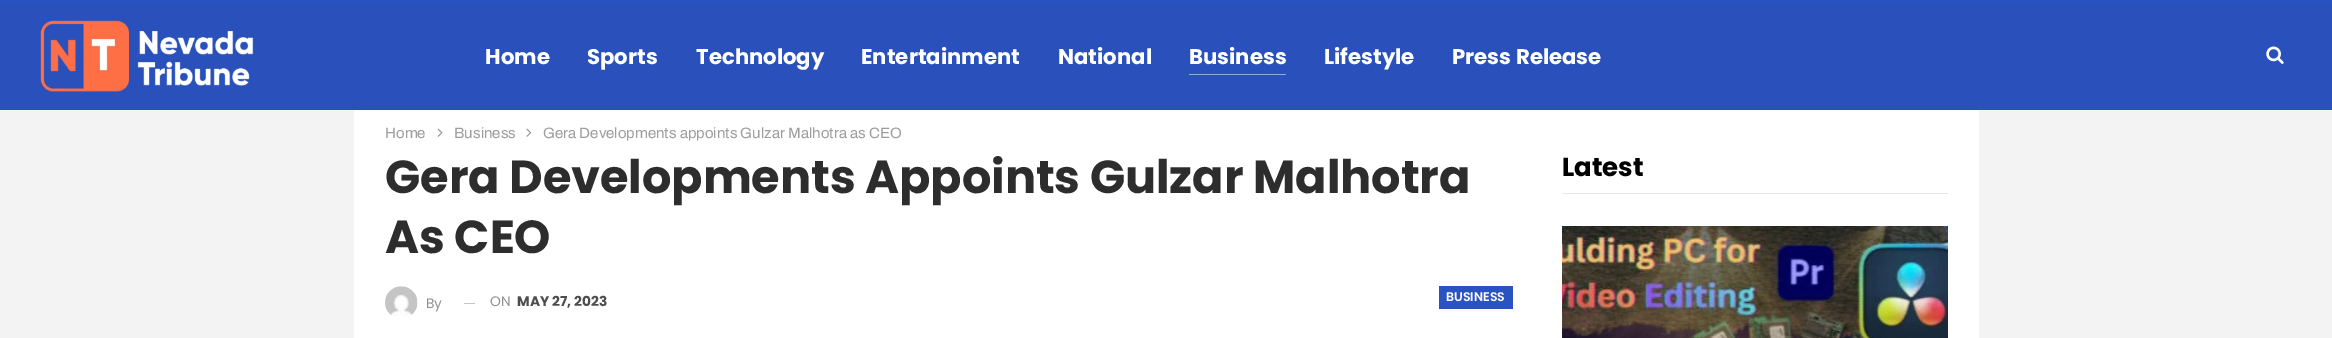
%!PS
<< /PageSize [2332 338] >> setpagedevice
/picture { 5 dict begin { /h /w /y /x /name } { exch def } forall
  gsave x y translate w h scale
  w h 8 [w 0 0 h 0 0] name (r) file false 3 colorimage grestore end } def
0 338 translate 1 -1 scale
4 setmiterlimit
0.953 setgray
0 0 2332 338 rectfill
0.165 0.325 0.757 setrgbcolor
0 0 2332 4 rectfill
0.165 0.318 0.733 setrgbcolor
0 4 2332 106 rectfill
(img1.rgb) 40 20 214 72 picture
/Poppins-Bold [21.25 0 0 -21.25 0 0] selectfont
1 setgray
485 64 moveto (Home) show
587 64 moveto (Sports) show
696 64 moveto (Technology) show
861 64 moveto (Entertainment) show
1058 64 moveto (National) show
1189 64 moveto (Business) show
0.584 0.659 0.867 setrgbcolor
1189 74 97 1 rectfill
1 setgray
1324 64 moveto (Lifestyle) show
1452 64 moveto (Press Release) show
(img2.rgb) 2266 46 18 18 picture
354 110 1625 228 rectfill
/Archivo-Regular [15 0 0 -15 0 0] selectfont
0.62 setgray
385 138 moveto (Home) show
(img3.rgb) 437 128 6 9 picture
454 138 moveto (Business) show
(img4.rgb) 526 128 6 9 picture
543 138 moveto (Gera Developments appoints Gulzar Malhotra as CEO) show
/Poppins-Bold [46.25 0 0 -46.25 0 0] selectfont
0.176 setgray
385 193 moveto -0.1 0 (Gera Developments Appoints Gulzar Malhotra) ashow
385 253 moveto -0.1 0 (As CEO) ashow
(img5.rgb) 385 286 33 30 picture
/Poppins-Regular [13.75 0 0 -13.75 0 0] selectfont
0.561 setgray
426 308 moveto (By) show
0.769 setgray
464 303 11 1 rectfill
0.561 setgray
490 306 moveto (ON) show
/Poppins-Bold [13.75 0 0 -13.75 0 0] selectfont
0.302 setgray
517 306 moveto (MAY 27, 2023) show
0.165 0.325 0.757 setrgbcolor
1439 286 74 23 rectfill
/Poppins-SemiBold [12.5 0 0 -12.5 0 0] selectfont
1 setgray
1446 301 moveto (BUSINESS) show
/Poppins-Bold [26 0 0 -26 0 0] selectfont
0 setgray
1562 176 moveto -0.1 0 (Latest) ashow
0.902 setgray
1563 193 385 1 rectfill
(img6.rgb) 1562 226 386 112 picture
showpage
